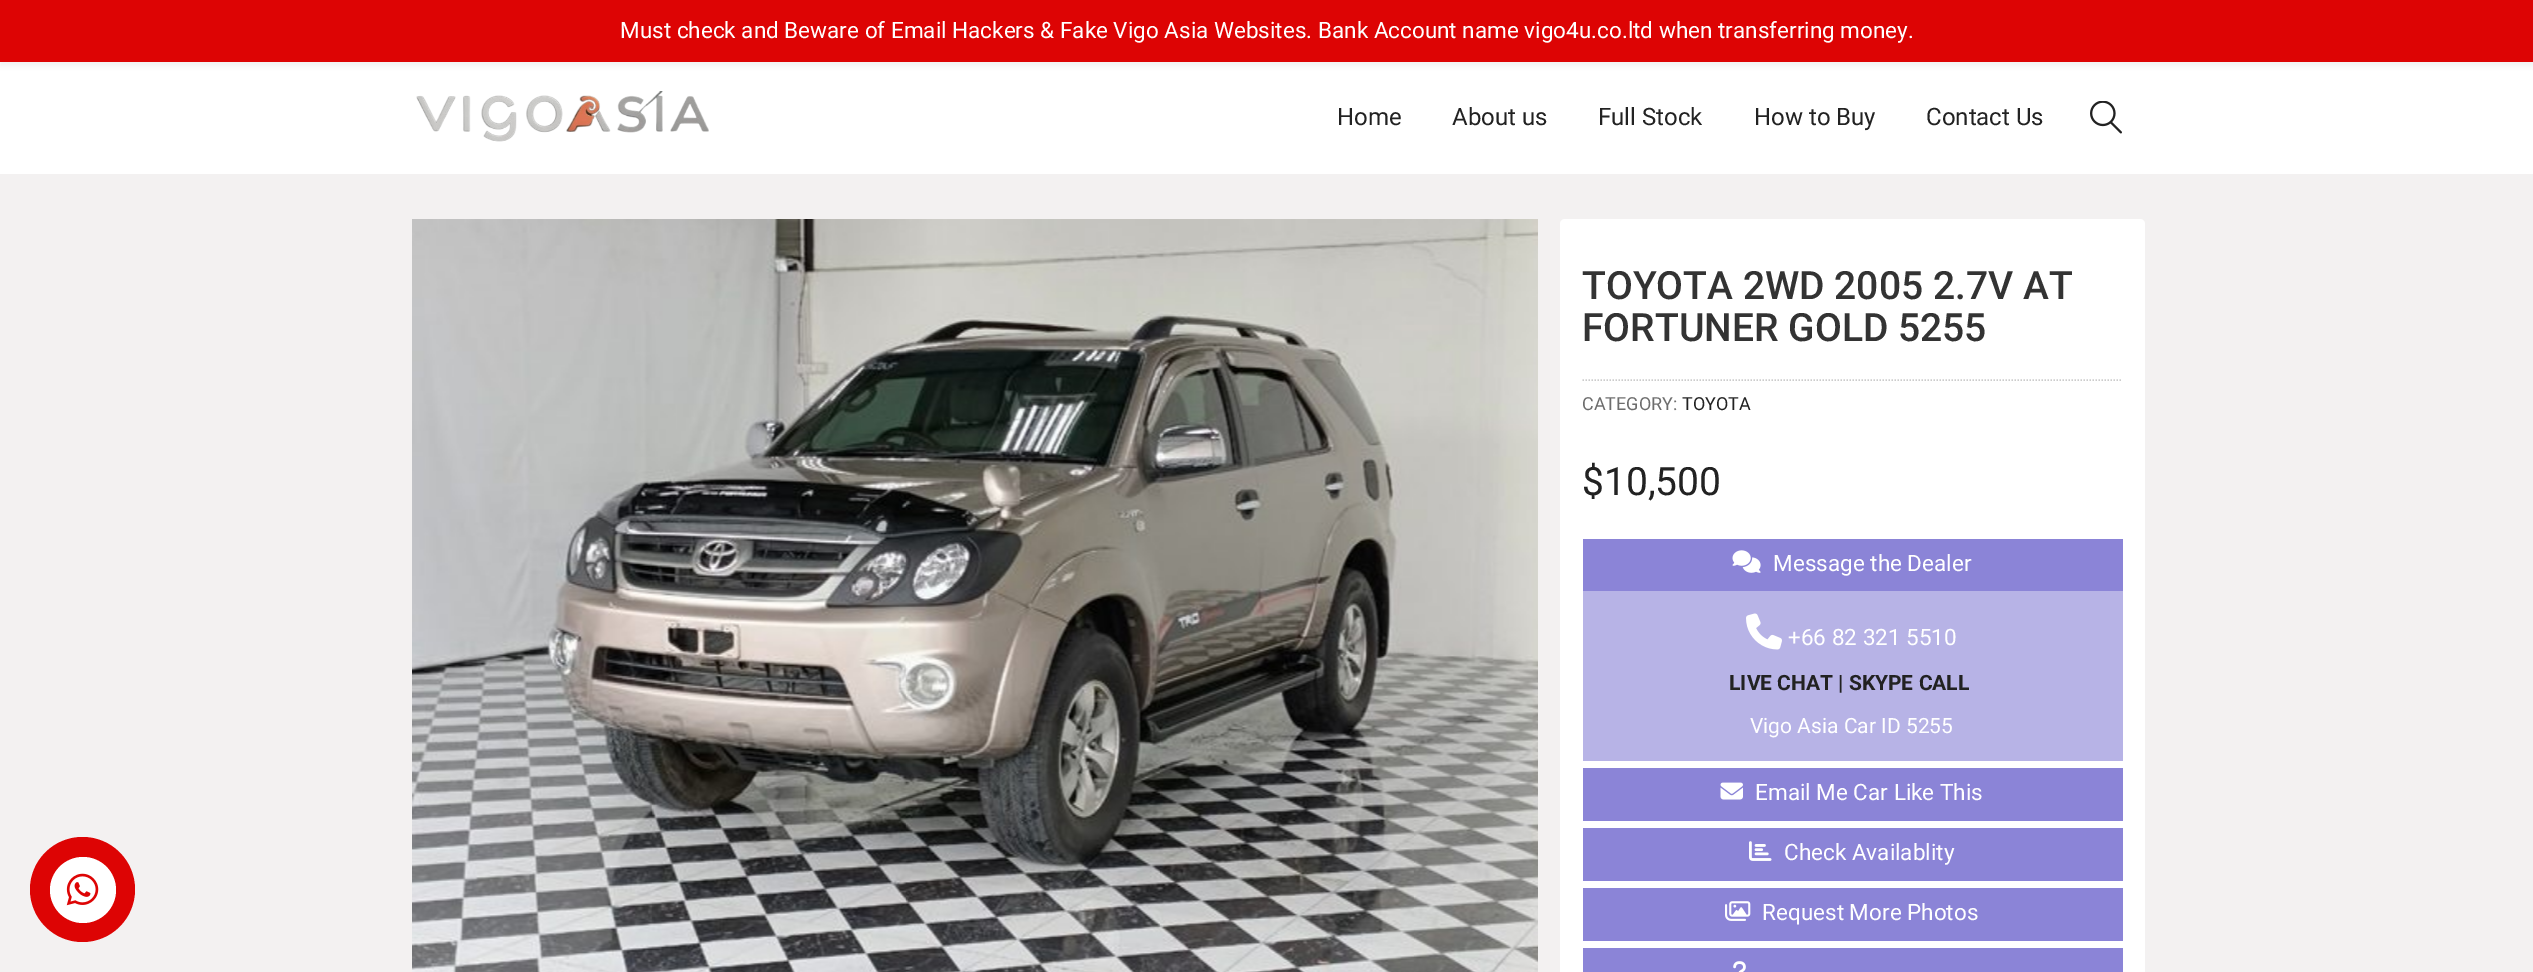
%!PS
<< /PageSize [2533 972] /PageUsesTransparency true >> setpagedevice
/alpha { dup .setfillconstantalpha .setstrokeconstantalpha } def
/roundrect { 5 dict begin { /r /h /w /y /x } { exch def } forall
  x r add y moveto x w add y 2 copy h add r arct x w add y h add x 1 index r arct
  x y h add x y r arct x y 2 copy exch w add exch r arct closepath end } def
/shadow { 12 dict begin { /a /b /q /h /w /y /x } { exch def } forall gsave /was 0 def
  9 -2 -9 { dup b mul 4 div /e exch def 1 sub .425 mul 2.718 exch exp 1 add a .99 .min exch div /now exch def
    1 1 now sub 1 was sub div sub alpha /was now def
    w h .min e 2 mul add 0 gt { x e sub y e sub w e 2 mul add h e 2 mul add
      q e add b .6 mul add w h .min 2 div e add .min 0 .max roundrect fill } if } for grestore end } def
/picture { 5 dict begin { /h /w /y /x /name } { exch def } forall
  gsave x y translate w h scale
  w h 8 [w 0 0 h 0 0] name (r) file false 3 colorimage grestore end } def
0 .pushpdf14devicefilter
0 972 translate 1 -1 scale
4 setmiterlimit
0.953 0.945 0.945 setrgbcolor
0 0 2533 972 rectfill
1 setgray
0 62 2533 112 rectfill
0 setgray
0 5 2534 61 0 3 0.05 shadow
0.867 0.016 0.016 setrgbcolor
0 0 2533 62 rectfill
/Roboto-Regular [22.5 0 0 -22.5 0 0] selectfont
1 setgray
620 38 moveto (Must check and Beware of Email Hackers & Fake Vigo Asia Websites. Bank Account name vigo4u.co.ltd when transferring money.) show
0.867 0.016 0.016 setrgbcolor
newpath 82.5 889.5 52.5 0 360 arc closepath fill
1 setgray
newpath 83 890 33 0 360 arc closepath fill
(img1.rgb) 66 873 33 33 picture
(img2.rgb) 416 91 293 51 picture
/Roboto-Regular [24 0 0 -24 0 0] selectfont
0.133 setgray
1337 125 moveto (Home) show
1452 125 moveto (About us) show
1598 125 moveto (Full Stock) show
1754 125 moveto (How to Buy) show
1926 125 moveto (Contact Us) show
(img3.rgb) 2090 101 32 33 picture
(img4.rgb) 412 219 1126 753 picture
1 setgray
1560 219 585 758 5 roundrect fill
/Roboto-Medium [39 0 0 -39 0 0] selectfont
0.2 setgray
1582 299 moveto (TOYOTA 2WD 2005 2.7V AT) show
1582 341 moveto (FORTUNER GOLD 5255) show
0.8 setgray
1.5 setlinewidth
[1.5 1.5] 0 setdash
newpath 1582.5 380 moveto 2122.5 380 lineto stroke
/Roboto-Regular [18 0 0 -18 0 0] selectfont
0.427 setgray
1582 410 moveto (CATEGORY:) show
0.133 setgray
1682 410 moveto (TOYOTA) show
/Roboto-Regular [39 0 0 -39 0 0] selectfont
1582 495 moveto ($10,500) show
0.545 0.518 0.843 setrgbcolor
1583 539 540 52 rectfill
(img5.rgb) 1732 550 29 23 picture
/Roboto-Regular [22.5 0 0 -22.5 0 0] selectfont
1 setgray
1773 571 moveto (Message the Dealer) show
0.718 0.702 0.902 setrgbcolor
1583 591 540 170 rectfill
(img6.rgb) 1746 613 36 37 picture
1 setgray
1788 645 moveto (+66 82 321 5510) show
/Roboto-Bold [21 0 0 -21 0 0] selectfont
0.133 setgray
1729 690 moveto (LIVE CHAT | SKYPE CALL) show
/Roboto-Regular [21 0 0 -21 0 0] selectfont
1 setgray
1750 733 moveto (Vigo Asia Car ID 5255) show
0.545 0.518 0.843 setrgbcolor
1583 768 540 53 rectfill
(img7.rgb) 1720 782 23 18 picture
/Roboto-Regular [22.5 0 0 -22.5 0 0] selectfont
1 setgray
1755 800 moveto (Email Me Car Like This) show
0.545 0.518 0.843 setrgbcolor
1583 828 540 53 rectfill
(img8.rgb) 1749 841 23 20 picture
1 setgray
1784 860 moveto (Check Availablity) show
0.545 0.518 0.843 setrgbcolor
1583 888 540 53 rectfill
(img9.rgb) 1725 901 26 20 picture
1 setgray
1762 920 moveto (Request More Photos) show
0.545 0.518 0.843 setrgbcolor
1583 948 540 24 rectfill
(img10.rgb) 1733 961 13 11 picture
.poppdf14devicefilter showpage
